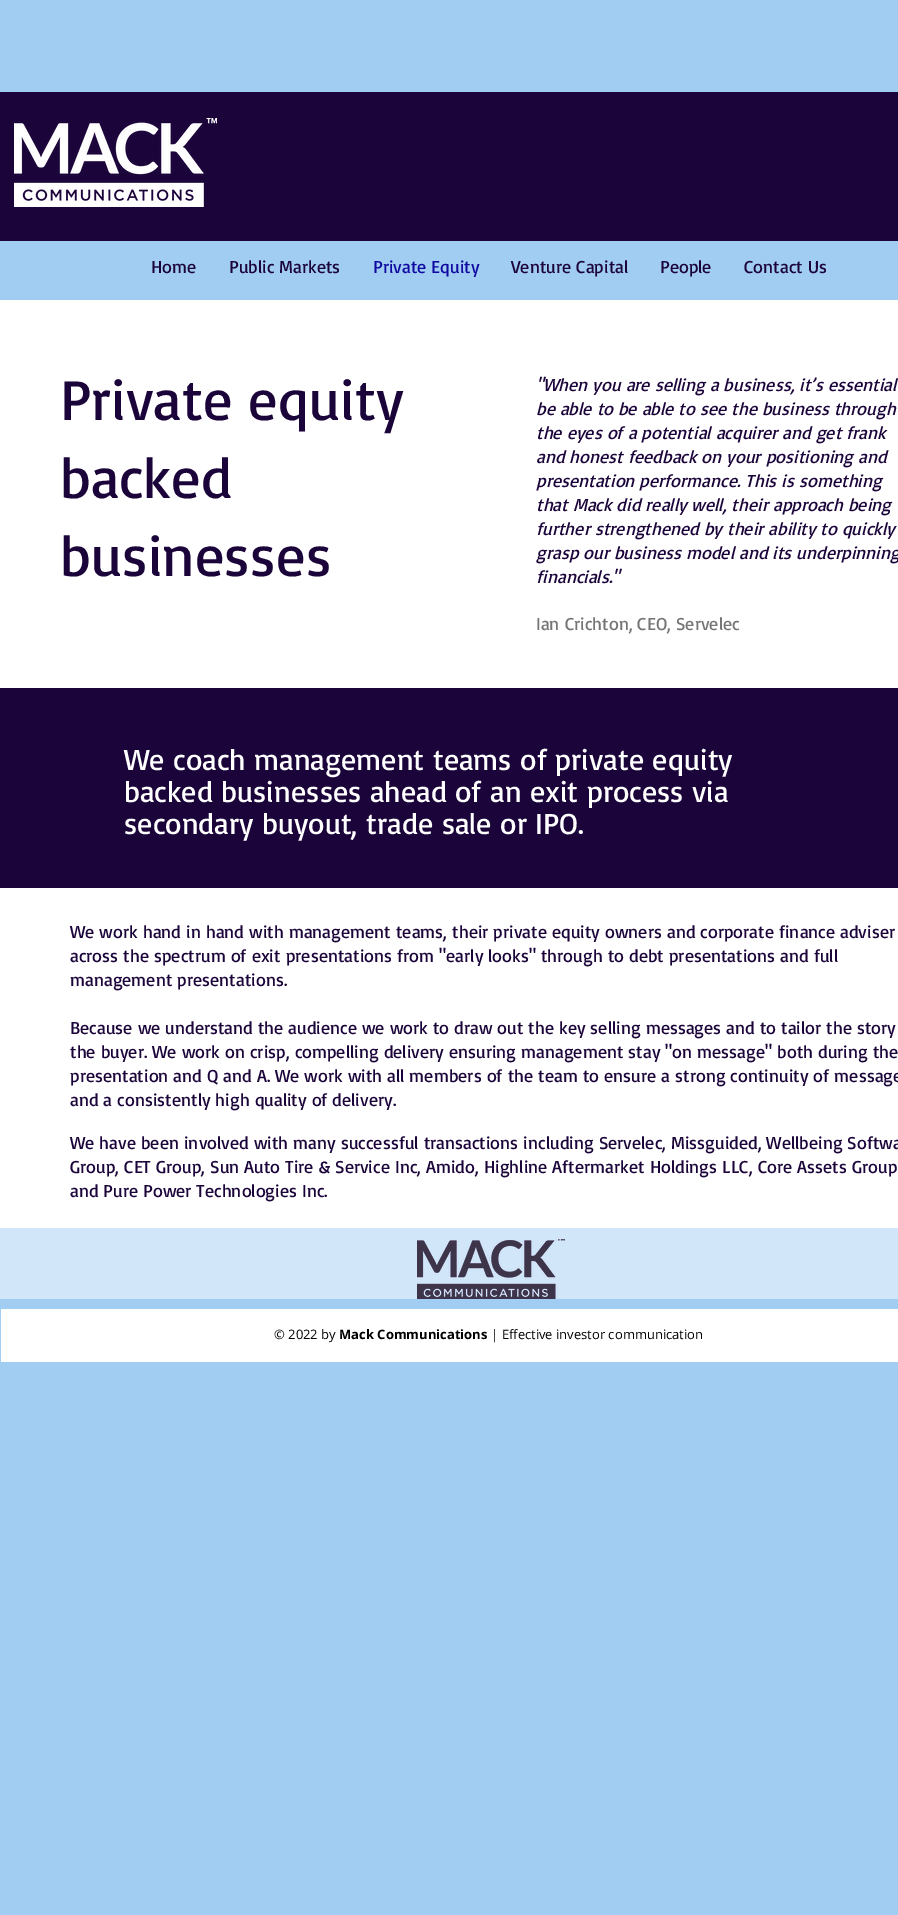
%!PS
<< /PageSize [898 1915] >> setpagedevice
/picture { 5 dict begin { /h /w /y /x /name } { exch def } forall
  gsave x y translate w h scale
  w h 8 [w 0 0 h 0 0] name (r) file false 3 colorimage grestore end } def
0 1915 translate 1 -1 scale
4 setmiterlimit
0.635 0.804 0.949 setrgbcolor
0 0 898 1915 rectfill
0.102 0.016 0.227 setrgbcolor
0 92 898 149 rectfill
(img1.rgb) 14 118 203 89 picture
/Basic-Regular [18 0 0 -18 0 0] selectfont
151 273 moveto (Home) show
229 273 moveto (Public Markets) show
0.059 0.035 0.631 setrgbcolor
373 273 moveto (Private Equity) show
0.102 0.016 0.227 setrgbcolor
511 273 moveto (Venture Capital) show
660 273 moveto (People) show
744 273 moveto (Contact Us) show
1 setgray
0 300 898 928 rectfill
/Basic-Regular [58 0 0 -58 0 0] selectfont
0.102 0.016 0.227 setrgbcolor
60 420 moveto (Private equity) show
60 498 moveto (backed) show
60 576 moveto (businesses) show
/Basic-Italic [18 0 0 -18 0 0] selectfont
536 391 moveto ("When you are selling a business, it’s essential) show
536 415 moveto (be able to be able to see the business through) show
536 439 moveto (the eyes of a potential acquirer and get frank) show
536 463 moveto (and honest feedback on your positioning and) show
536 487 moveto (presentation performance. This is something) show
536 511 moveto (that Mack did really well, their approach being) show
536 535 moveto (further strengthened by their ability to quickly) show
536 559 moveto (grasp our business model and its underpinning) show
536 583 moveto (financials.") show
/Basic-Regular [18 0 0 -18 0 0] selectfont
0.459 setgray
536 630 moveto (Ian Crichton, CEO, Servelec) show
0.102 0.016 0.227 setrgbcolor
0 688 898 200 rectfill
/Basic-Regular [30 0 0 -30 0 0] selectfont
1 setgray
124 770 moveto (We coach management teams of private equity) show
124 802 moveto (backed businesses ahead of an exit process via) show
124 834 moveto (secondary buyout, trade sale or IPO.) show
/Basic-Regular [18 0 0 -18 0 0] selectfont
0.102 0.016 0.227 setrgbcolor
70 938 moveto (We work hand in hand with management teams, their private equity owners and corporate finance adviser) show
70 962 moveto (across the spectrum of exit presentations from "early looks" through to debt presentations and full) show
70 986 moveto (management presentations.) show
70 1034 moveto (Because we understand the audience we work to draw out the key selling messages and to tailor the story) show
70 1058 moveto (the buyer. We work on crisp, compelling delivery ensuring management stay "on message" both during the) show
70 1082 moveto (presentation and Q and A. We work with all members of the team to ensure a strong continuity of message) show
70 1106 moveto (and a consistently high quality of delivery.) show
70 1149 moveto (We have been involved with many successful transactions including Servelec, Missguided, Wellbeing Softwa) show
70 1173 moveto (Group, CET Group, Sun Auto Tire & Service Inc, Amido, Highline Aftermarket Holdings LLC, Core Assets Group) show
70 1197 moveto (and Pure Power Technologies Inc.) show
0.82 0.902 0.976 setrgbcolor
0 1228 898 71 rectfill
(img2.rgb) 417 1239 148 60 picture
1 setgray
1 1309 897 53 rectfill
/OpenSans-Regular [13 0 0 -13 0 0] selectfont
0 setgray
274 1339 moveto (© 2022 by) show
/OpenSans-Bold [13 0 0 -13 0 0] selectfont
339 1339 moveto (Mack Communications) show
/OpenSans-Regular [13 0 0 -13 0 0] selectfont
491 1339 moveto (| Effective investor communication) show
showpage
